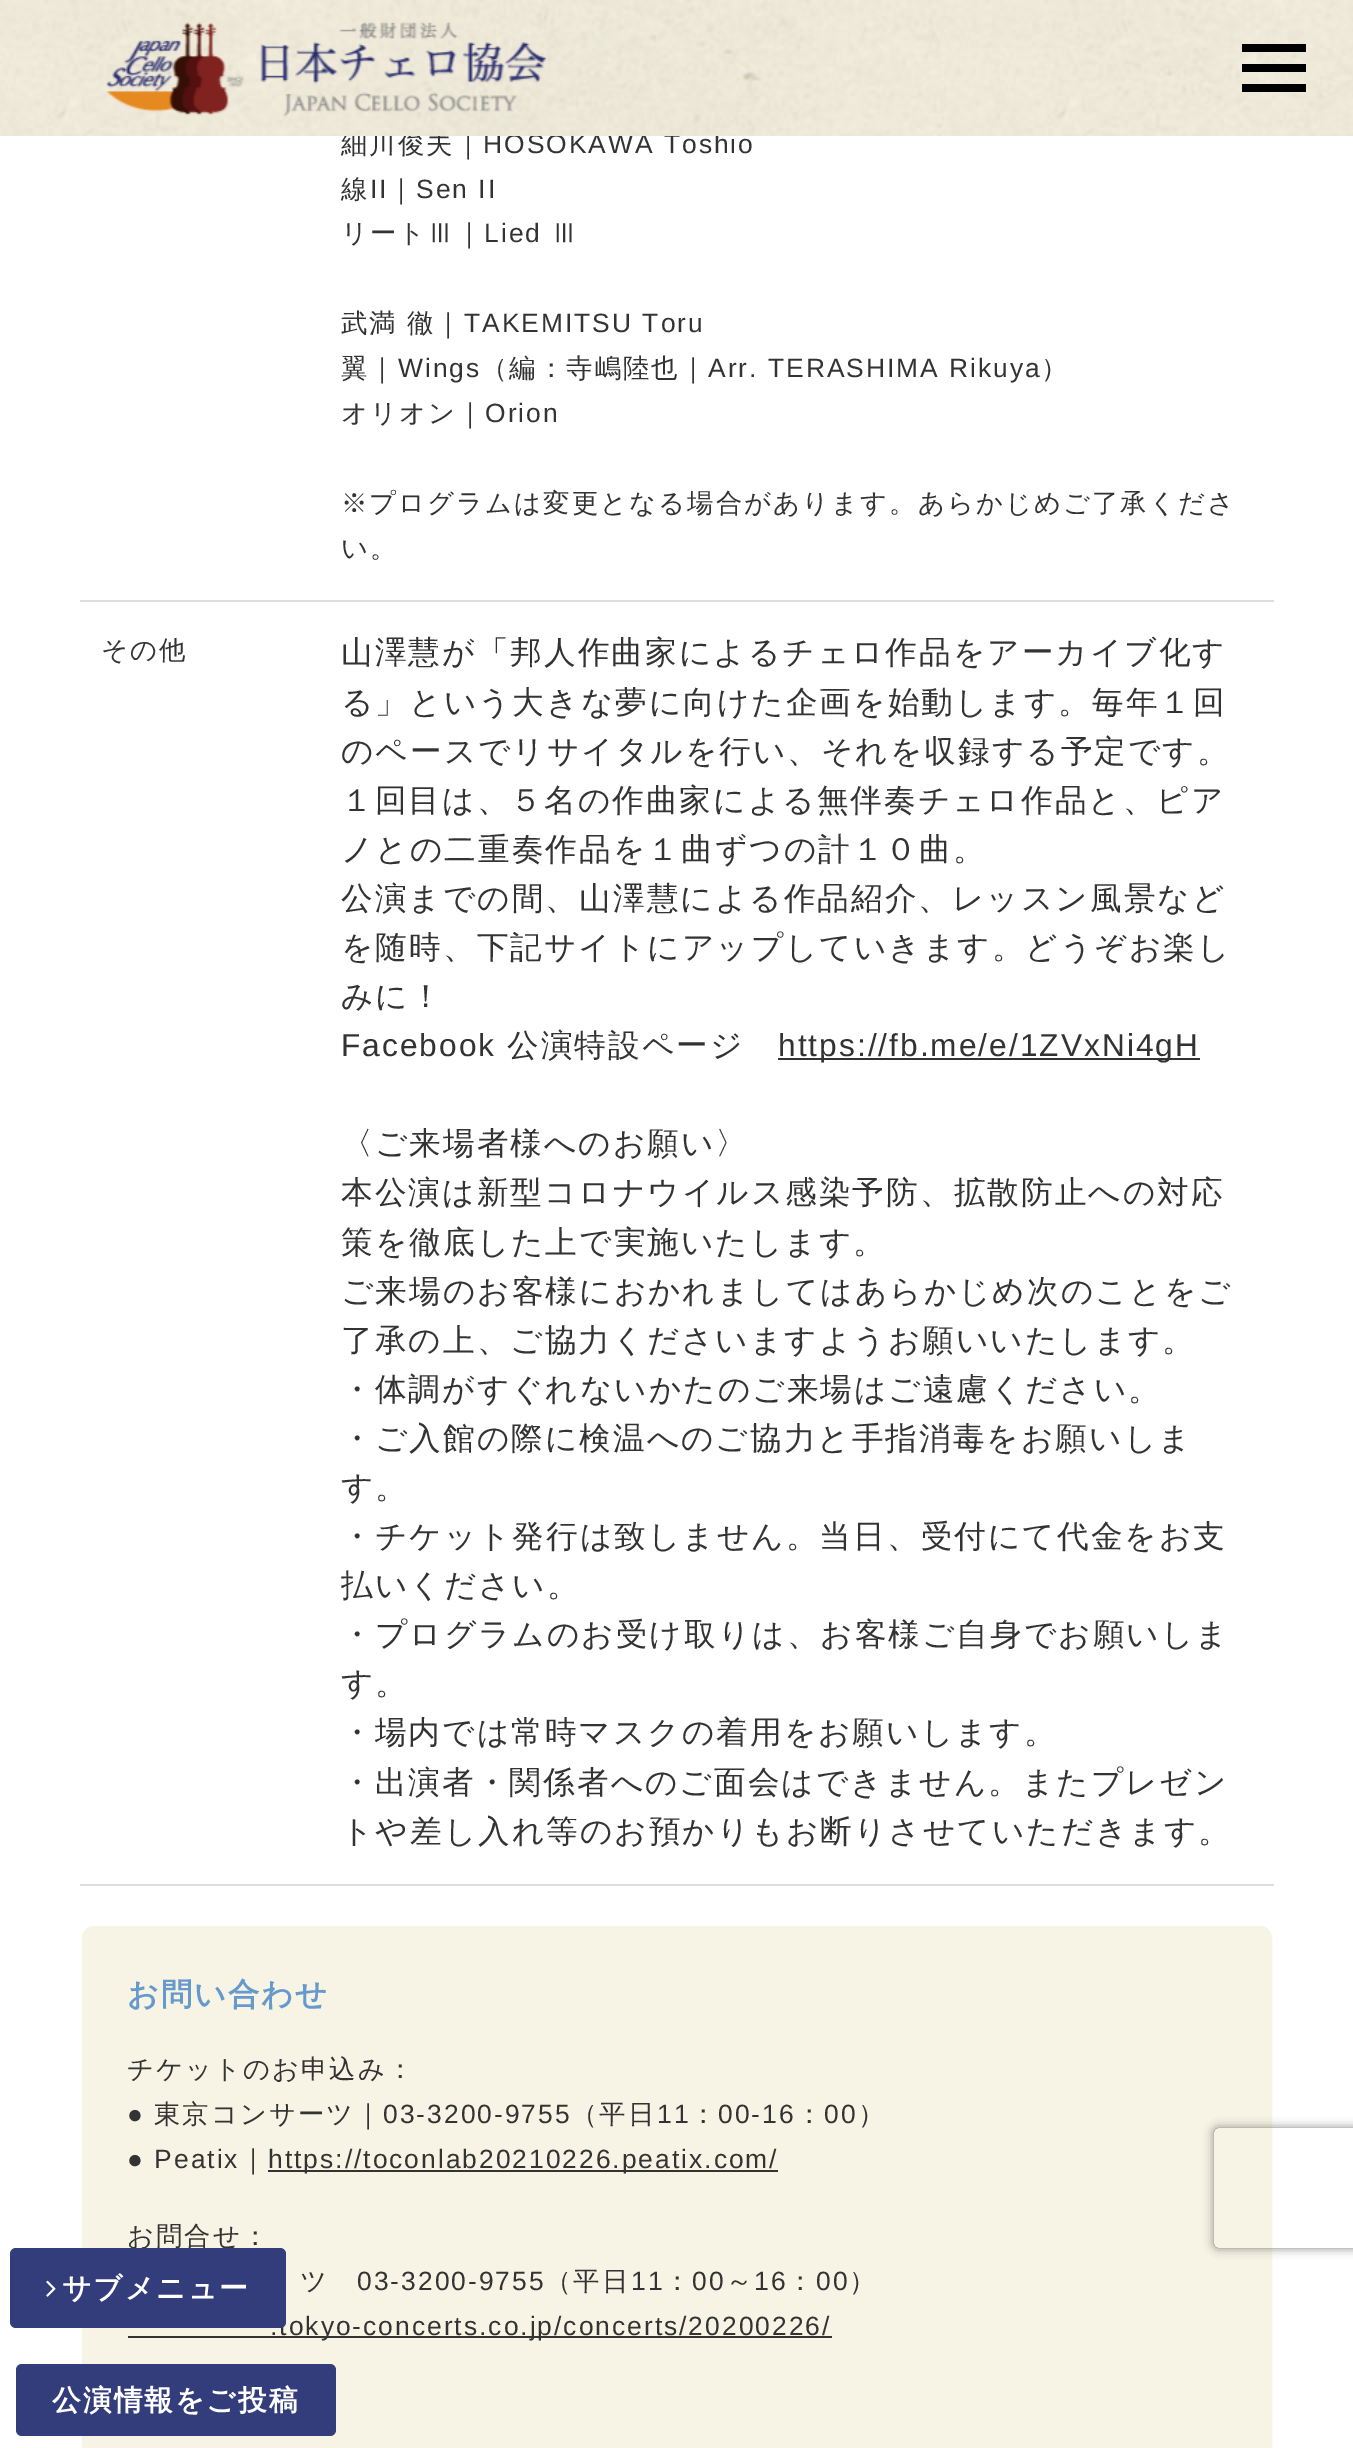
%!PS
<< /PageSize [1353 2448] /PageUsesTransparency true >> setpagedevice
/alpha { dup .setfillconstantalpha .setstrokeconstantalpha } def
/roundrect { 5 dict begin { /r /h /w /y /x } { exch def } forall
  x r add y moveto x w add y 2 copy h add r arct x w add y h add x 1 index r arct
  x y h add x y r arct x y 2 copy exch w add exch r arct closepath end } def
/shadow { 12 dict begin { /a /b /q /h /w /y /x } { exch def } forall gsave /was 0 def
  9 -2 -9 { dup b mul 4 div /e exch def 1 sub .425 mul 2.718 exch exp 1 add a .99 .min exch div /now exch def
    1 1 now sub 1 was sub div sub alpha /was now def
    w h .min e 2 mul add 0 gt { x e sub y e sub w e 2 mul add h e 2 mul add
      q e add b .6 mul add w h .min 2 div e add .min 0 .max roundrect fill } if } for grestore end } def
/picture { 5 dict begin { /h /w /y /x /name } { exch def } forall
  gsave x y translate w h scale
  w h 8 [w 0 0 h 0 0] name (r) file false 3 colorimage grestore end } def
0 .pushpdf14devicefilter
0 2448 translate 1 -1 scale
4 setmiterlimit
1 setgray
0 0 1353 2448 rectfill
/WenQuanYiZenHei-Medium [26.4 0 0 -26.4 0 0] selectfont
0.2 setgray
341 153 moveto 2 0 (細川俊夫｜) ashow
/LiberationSans-Regular [26.4 0 0 -26.4 0 0] selectfont
483 153 moveto 2 0 (HOSOKAWA Toshio) ashow
(img1.rgb) 0 0 1353 136 picture
(img2.rgb) 106 22 440 95 picture
0 setgray
1242 44 64 8 rectfill
1242 64 64 8 rectfill
1242 84 64 8 rectfill
0.867 setgray
80 600 1194 2 rectfill
/WenQuanYiZenHei-Medium [26.4 0 0 -26.4 0 0] selectfont
0.2 setgray
341 198 moveto 2 0 (線) ashow
/LiberationSans-Regular [26.4 0 0 -26.4 0 0] selectfont
370 198 moveto 2 0 (II) ashow
/WenQuanYiZenHei-Medium [26.4 0 0 -26.4 0 0] selectfont
388 198 moveto 2 0 (｜) ashow
/LiberationSans-Regular [26.4 0 0 -26.4 0 0] selectfont
416 198 moveto 2 0 (Sen II) ashow
/WenQuanYiZenHei-Medium [26.4 0 0 -26.4 0 0] selectfont
341 242 moveto 2 0 (リートⅢ｜) ashow
/LiberationSans-Regular [26.4 0 0 -26.4 0 0] selectfont
484 242 moveto 2 0 (Lied) ashow
/WenQuanYiZenHei-Medium [26.4 0 0 -26.4 0 0] selectfont
551 242 moveto 2 0 (Ⅲ) ashow
341 332 moveto 2 0 (武満) ashow
407 332 moveto 2 0 (徹｜) ashow
/LiberationSans-Regular [26.4 0 0 -26.4 0 0] selectfont
464 332 moveto 2 0 (TAKEMITSU Toru) ashow
/WenQuanYiZenHei-Medium [26.4 0 0 -26.4 0 0] selectfont
341 377 moveto 2 0 (翼｜) ashow
/LiberationSans-Regular [26.4 0 0 -26.4 0 0] selectfont
398 377 moveto 2 0 (Wings) ashow
/WenQuanYiZenHei-Medium [26.4 0 0 -26.4 0 0] selectfont
481 377 moveto 2 0 (（編：寺嶋陸也｜) ashow
/LiberationSans-Regular [26.4 0 0 -26.4 0 0] selectfont
708 377 moveto 2 0 (Arr. TERASHIMA Rikuya) ashow
/WenQuanYiZenHei-Medium [26.4 0 0 -26.4 0 0] selectfont
1041 377 moveto 2 0 (）) ashow
341 422 moveto 2 0 (オリオン｜) ashow
/LiberationSans-Regular [26.4 0 0 -26.4 0 0] selectfont
485 422 moveto 2 0 (Orion) ashow
/WenQuanYiZenHei-Medium [26.4 0 0 -26.4 0 0] selectfont
341 512 moveto 2 0 (※プログラムは変更となる場合があります。あらかじめご了承くださ) ashow
341 557 moveto 2 0 (い。) ashow
101 659 moveto 2 0 (その他) ashow
0.867 setgray
80 1884 1194 2 rectfill
/WenQuanYiZenHei-Medium [31.7 0 0 -31.7 0 0] selectfont
0.2 setgray
341 663 moveto 2 0 (山澤慧が「邦人作曲家によるチェロ作品をアーカイブ化す) ashow
341 713 moveto 2 0 (る」という大きな夢に向けた企画を始動します。毎年１回) ashow
341 762 moveto 2 0 (のペースでリサイタルを行い、それを収録する予定です。) ashow
341 811 moveto 2 0 (１回目は、５名の作曲家による無伴奏チェロ作品と、ピア) ashow
341 860 moveto 2 0 (ノとの二重奏作品を１曲ずつの計１０曲。) ashow
341 909 moveto 2 0 (公演までの間、山澤慧による作品紹介、レッスン風景など) ashow
341 958 moveto 2 0 (を随時、下記サイトにアップしていきます。どうぞお楽し) ashow
341 1007 moveto 2 0 (みに！) ashow
/LiberationSans-Regular [31.7 0 0 -31.7 0 0] selectfont
341 1056 moveto 2 0 (Facebook) ashow
/WenQuanYiZenHei-Medium [31.7 0 0 -31.7 0 0] selectfont
507 1056 moveto 2 0 (公演特設ページ) ashow
778 1058 422 2 rectfill
/LiberationSans-Regular [31.7 0 0 -31.7 0 0] selectfont
778 1056 moveto 2 0 (https://fb.me/e/1ZVxNi4gH) ashow
/WenQuanYiZenHei-Medium [31.7 0 0 -31.7 0 0] selectfont
341 1154 moveto 2 0 (〈ご来場者様へのお願い〉) ashow
341 1203 moveto 2 0 (本公演は新型コロナウイルス感染予防、拡散防止への対応) ashow
341 1253 moveto 2 0 (策を徹底した上で実施いたします。) ashow
341 1302 moveto 2 0 (ご来場のお客様におかれましてはあらかじめ次のことをご) ashow
341 1351 moveto 2 0 (了承の上、ご協力くださいますようお願いいたします。) ashow
341 1400 moveto 2 0 (・体調がすぐれないかたのご来場はご遠慮ください。) ashow
341 1449 moveto 2 0 (・ご入館の際に検温へのご協力と手指消毒をお願いしま) ashow
341 1498 moveto 2 0 (す。) ashow
341 1547 moveto 2 0 (・チケット発行は致しません。当日、受付にて代金をお支) ashow
341 1596 moveto 2 0 (払いください。) ashow
341 1645 moveto 2 0 (・プログラムのお受け取りは、お客様ご自身でお願いしま) ashow
341 1694 moveto 2 0 (す。) ashow
341 1743 moveto 2 0 (・場内では常時マスクの着用をお願いします。) ashow
341 1793 moveto 2 0 (・出演者・関係者へのご面会はできません。またプレゼン) ashow
341 1842 moveto 2 0 (トや差し入れ等のお預かりもお断りさせていただきます。) ashow
0.969 0.957 0.898 setrgbcolor
85 1929 1184 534 9 roundrect gsave fill grestore
6 setlinewidth
stroke
/WenQuanYiZenHei-Bold [31.25 0 0 -31.25 0 0] selectfont
0.4 0.6 0.8 setrgbcolor
127 2005 moveto 2 0 (お問い合わせ) ashow
/WenQuanYiZenHei-Medium [26.4 0 0 -26.4 0 0] selectfont
0.2 setgray
127 2078 moveto 2 0 (チケットのお申込み：) ashow
/LiberationSans-Regular [26.4 0 0 -26.4 0 0] selectfont
127 2123 moveto 2 0 (●) ashow
/WenQuanYiZenHei-Medium [26.4 0 0 -26.4 0 0] selectfont
154 2123 moveto 2 0 (東京コンサーツ｜) ashow
/LiberationSans-Regular [26.4 0 0 -26.4 0 0] selectfont
383 2123 moveto 2 0 (03-3200-9755) ashow
/WenQuanYiZenHei-Medium [26.4 0 0 -26.4 0 0] selectfont
571 2123 moveto 2 0 (（平日) ashow
/LiberationSans-Regular [26.4 0 0 -26.4 0 0] selectfont
657 2123 moveto 2 0 (11) ashow
/WenQuanYiZenHei-Medium [26.4 0 0 -26.4 0 0] selectfont
690 2123 moveto 2 0 (：) ashow
/LiberationSans-Regular [26.4 0 0 -26.4 0 0] selectfont
718 2123 moveto 2 0 (00-16) ashow
/WenQuanYiZenHei-Medium [26.4 0 0 -26.4 0 0] selectfont
796 2123 moveto 2 0 (：) ashow
/LiberationSans-Regular [26.4 0 0 -26.4 0 0] selectfont
824 2123 moveto 2 0 (00) ashow
/WenQuanYiZenHei-Medium [26.4 0 0 -26.4 0 0] selectfont
858 2123 moveto 2 0 (）) ashow
/LiberationSans-Regular [26.4 0 0 -26.4 0 0] selectfont
127 2168 moveto 2 0 (● Peatix) ashow
/WenQuanYiZenHei-Medium [26.4 0 0 -26.4 0 0] selectfont
240 2168 moveto 2 0 (｜) ashow
268 2170 510 2 rectfill
/LiberationSans-Regular [26.4 0 0 -26.4 0 0] selectfont
268 2168 moveto 2 0 (https://toconlab20210226.peatix.com/) ashow
/WenQuanYiZenHei-Medium [26.4 0 0 -26.4 0 0] selectfont
127 2245 moveto 2 0 (お問合せ：) ashow
300 2290 moveto 2 0 (ツ) ashow
/LiberationSans-Regular [26.4 0 0 -26.4 0 0] selectfont
357 2290 moveto 2 0 (03-3200-9755) ashow
/WenQuanYiZenHei-Medium [26.4 0 0 -26.4 0 0] selectfont
545 2290 moveto 2 0 (（平日) ashow
/LiberationSans-Regular [26.4 0 0 -26.4 0 0] selectfont
631 2290 moveto 2 0 (11) ashow
/WenQuanYiZenHei-Medium [26.4 0 0 -26.4 0 0] selectfont
664 2290 moveto 2 0 (：) ashow
/LiberationSans-Regular [26.4 0 0 -26.4 0 0] selectfont
692 2290 moveto 2 0 (00) ashow
/WenQuanYiZenHei-Medium [26.4 0 0 -26.4 0 0] selectfont
726 2290 moveto 2 0 (～) ashow
/LiberationSans-Regular [26.4 0 0 -26.4 0 0] selectfont
754 2290 moveto 2 0 (16) ashow
/WenQuanYiZenHei-Medium [26.4 0 0 -26.4 0 0] selectfont
787 2290 moveto 2 0 (：) ashow
/LiberationSans-Regular [26.4 0 0 -26.4 0 0] selectfont
816 2290 moveto 2 0 (00) ashow
/WenQuanYiZenHei-Medium [26.4 0 0 -26.4 0 0] selectfont
849 2290 moveto 2 0 (）) ashow
128 2336 704 2 rectfill
/LiberationSans-Regular [26.4 0 0 -26.4 0 0] selectfont
270 2335 moveto 2 0 (.tokyo-concerts.co.jp/concerts/20200226/) ashow
0.2 0.239 0.482 setrgbcolor
10 2248 276 80 6 roundrect fill
(img3.rgb) 46 2280 10 17 picture
/WenQuanYiZenHei-Bold [28.75 0 0 -28.75 0 0] selectfont
1 setgray
62 2298 moveto 2 0 (サブメニュー) ashow
gsave
newpath 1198 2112 moveto 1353 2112 lineto 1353 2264 lineto 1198 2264 lineto closepath 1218 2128 moveto 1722 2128 lineto 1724 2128 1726 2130 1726 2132 curveto 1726 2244 lineto 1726 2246 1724 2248 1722 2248 curveto 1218 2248 lineto 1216 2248 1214 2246 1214 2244 curveto 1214 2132 lineto 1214 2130 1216 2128 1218 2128 curveto closepath eoclip newpath
0.502 setgray
1214 2128 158 120 4 5 1 shadow
grestore
0.2 0.239 0.482 setrgbcolor
16 2364 320 72 6 roundrect fill
1 setgray
52 2410 moveto 2 0 (公演情報をご投稿) ashow
.poppdf14devicefilter showpage
